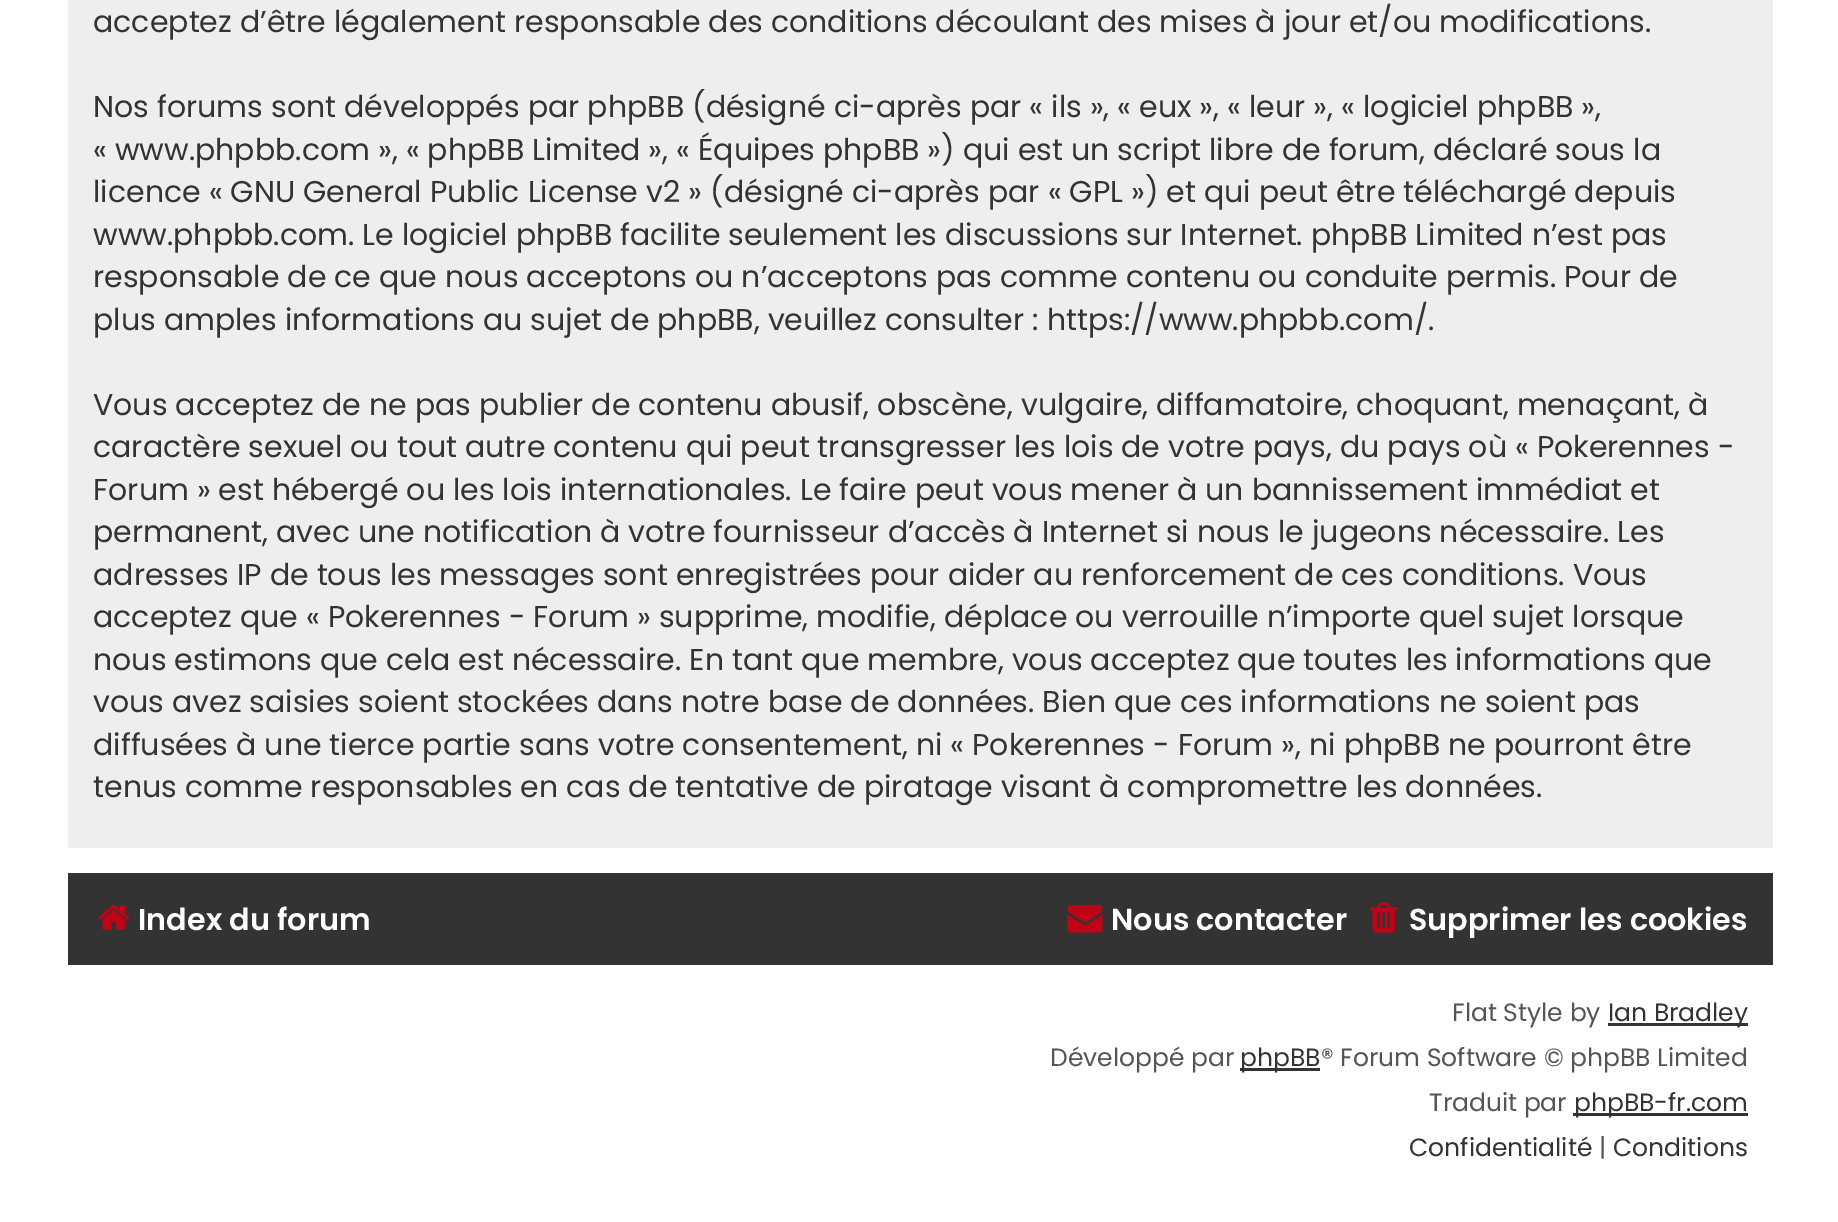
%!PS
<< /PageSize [1838 1222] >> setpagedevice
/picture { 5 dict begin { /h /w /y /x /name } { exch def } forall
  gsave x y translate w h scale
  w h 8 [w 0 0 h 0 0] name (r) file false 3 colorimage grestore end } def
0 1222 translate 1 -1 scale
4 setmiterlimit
1 setgray
0 0 1838 1222 rectfill
0.933 setgray
68 0 1705 848 rectfill
/Poppins-Regular [30 0 0 -30 0 0] selectfont
0.2 setgray
93 32 moveto (acceptez d’être légalement responsable des conditions découlant des mises à jour et/ou modifications.) show
93 117 moveto (Nos forums sont développés par phpBB \(désigné ci-après par « ils », « eux », « leur », « logiciel phpBB »,) show
93 160 moveto (« www.phpbb.com », « phpBB Limited », « Équipes phpBB »\) qui est un script libre de forum, déclaré sous la) show
93 202 moveto (licence « GNU General Public License v2 » \(désigné ci-après par « GPL »\) et qui peut être téléchargé depuis) show
93 245 moveto (www.phpbb.com. Le logiciel phpBB facilite seulement les discussions sur Internet. phpBB Limited n’est pas) show
93 287 moveto (responsable de ce que nous acceptons ou n’acceptons pas comme contenu ou conduite permis. Pour de) show
93 330 moveto (plus amples informations au sujet de phpBB, veuillez consulter : https://www.phpbb.com/.) show
93 415 moveto (Vous acceptez de ne pas publier de contenu abusif, obscène, vulgaire, diffamatoire, choquant, menaçant, à) show
93 457 moveto (caractère sexuel ou tout autre contenu qui peut transgresser les lois de votre pays, du pays où « Pokerennes -) show
93 500 moveto (Forum » est hébergé ou les lois internationales. Le faire peut vous mener à un bannissement immédiat et) show
93 542 moveto (permanent, avec une notification à votre fournisseur d’accès à Internet si nous le jugeons nécessaire. Les) show
93 585 moveto (adresses IP de tous les messages sont enregistrées pour aider au renforcement de ces conditions. Vous) show
93 627 moveto (acceptez que « Pokerennes - Forum » supprime, modifie, déplace ou verrouille n’importe quel sujet lorsque) show
93 670 moveto (nous estimons que cela est nécessaire. En tant que membre, vous acceptez que toutes les informations que) show
93 712 moveto (vous avez saisies soient stockées dans notre base de données. Bien que ces informations ne soient pas) show
93 755 moveto (diffusées à une tierce partie sans votre consentement, ni « Pokerennes - Forum », ni phpBB ne pourront être) show
93 797 moveto (tenus comme responsables en cas de tentative de piratage visant à compromettre les données.) show
68 873 1705 92 rectfill
(img1.rgb) 98 905 32 25 picture
/Poppins-SemiBold [30.25 0 0 -30.25 0 0] selectfont
1 setgray
138 930 moveto (Index du forum) show
(img2.rgb) 1067 905 36 28 picture
1111 930 moveto (Nous contacter) show
(img3.rgb) 1370 902 28 31 picture
1409 930 moveto (Supprimer les cookies) show
/Poppins-Regular [25 0 0 -25 0 0] selectfont
0.333 setgray
1452 1021 moveto (Flat Style by) show
0.2 setgray
1608 1023 140 3 rectfill
1608 1021 moveto (Ian Bradley) show
0.333 setgray
1050 1066 moveto (Développé par) show
0.2 setgray
1240 1068 80 3 rectfill
1240 1066 moveto (phpBB) show
0.333 setgray
1321 1066 moveto (® Forum Software © phpBB Limited) show
1429 1111 moveto (Traduit par) show
0.2 setgray
1573 1113 175 3 rectfill
1574 1111 moveto (phpBB-fr.com) show
1409 1156 moveto (Confidentialité) show
0.333 setgray
1599 1156 moveto (|) show
0.2 setgray
1613 1156 moveto (Conditions) show
showpage
